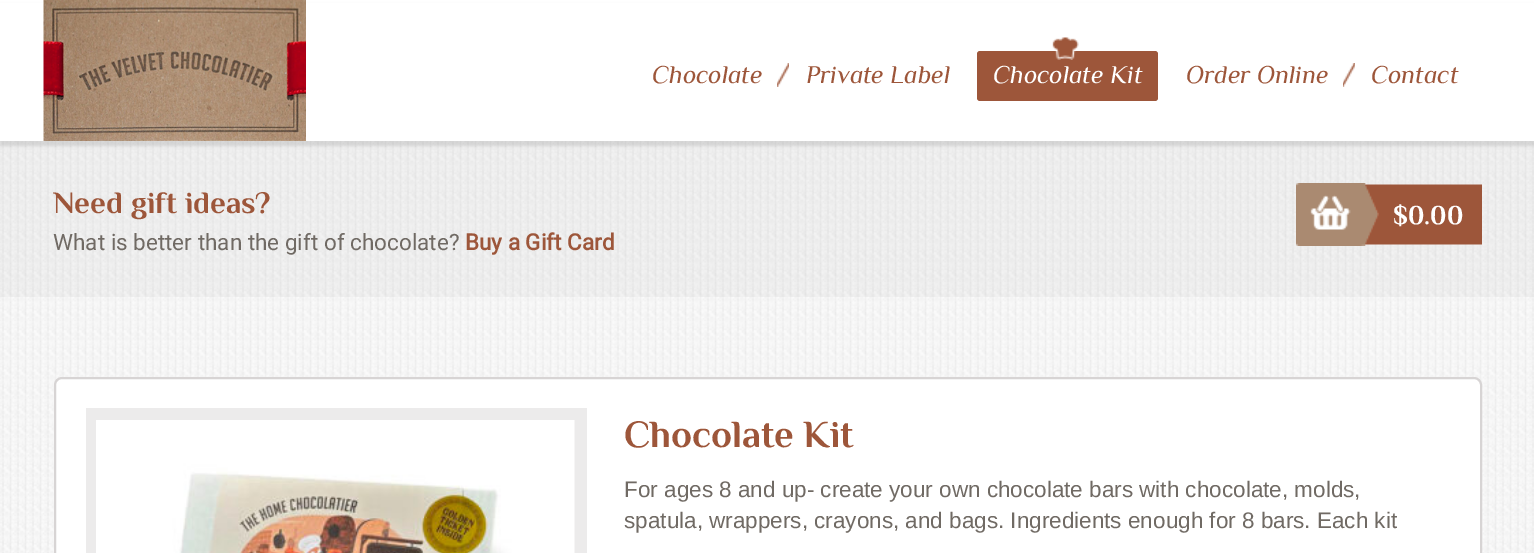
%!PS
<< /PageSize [1534 553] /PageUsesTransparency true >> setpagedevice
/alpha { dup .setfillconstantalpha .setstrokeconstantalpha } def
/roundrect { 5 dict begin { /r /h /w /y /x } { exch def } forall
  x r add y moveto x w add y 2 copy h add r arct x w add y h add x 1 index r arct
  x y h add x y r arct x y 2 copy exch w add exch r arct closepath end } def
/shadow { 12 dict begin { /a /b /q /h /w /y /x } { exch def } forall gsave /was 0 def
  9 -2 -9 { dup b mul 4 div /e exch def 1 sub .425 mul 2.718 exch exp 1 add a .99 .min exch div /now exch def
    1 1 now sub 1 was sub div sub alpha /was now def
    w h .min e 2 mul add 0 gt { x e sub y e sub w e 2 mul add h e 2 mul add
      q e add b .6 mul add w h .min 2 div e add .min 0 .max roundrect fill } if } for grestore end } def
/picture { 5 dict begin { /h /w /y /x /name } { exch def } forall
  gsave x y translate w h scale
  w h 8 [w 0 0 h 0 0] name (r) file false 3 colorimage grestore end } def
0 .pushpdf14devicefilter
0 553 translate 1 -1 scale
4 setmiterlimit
1 setgray
0 0 1534 553 rectfill
(img1.rgb) 0 141 1534 412 picture
0.03 alpha
0 setgray
0 141 1534 156 rectfill
1 alpha
0 5 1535 141 0 1.5 0.1 shadow
1 setgray
0 3 1534 138 rectfill
(img2.rgb) 43 0 263 141 picture
/Philosopher-Italic [25.5 0 0 -25.5 0 0] selectfont
0.616 0.337 0.227 setrgbcolor
652 83 moveto (Chocolate) show
(img3.rgb) 777 63 12 24 picture
806 83 moveto (Private Label) show
977 51 181 50 3 roundrect fill
(img4.rgb) 1052 37 27 23 picture
1 setgray
993 83 moveto (Chocolate Kit) show
0.616 0.337 0.227 setrgbcolor
1186 83 moveto (Order Online) show
(img5.rgb) 1343 63 12 24 picture
1371 83 moveto (Contact) show
/Philosopher-Bold [31 0 0 -31 0 0] selectfont
53 213 moveto (Need gift ideas?) show
/Roboto-Regular [22.5 0 0 -22.5 0 0] selectfont
0.439 0.416 0.392 setrgbcolor
53 250 moveto (What is better than the gift of chocolate?) show
/Roboto-Bold [22.5 0 0 -22.5 0 0] selectfont
0.616 0.337 0.227 setrgbcolor
465 250 moveto (Buy a Gift Card) show
(img6.rgb) 1296 183 186 63 picture
/Philosopher-Bold [27 0 0 -27 0 0] selectfont
1 setgray
1393 224 moveto ($0.00) show
55 378 1426 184 7 roundrect gsave fill grestore
0.843 0.831 0.831 setrgbcolor
2 setlinewidth
stroke
0.925 0.922 0.922 setrgbcolor
86 408 501 145 rectfill
(img7.rgb) 96 420 479 133 picture
/Philosopher-Bold [38.25 0 0 -38.25 0 0] selectfont
0.616 0.337 0.227 setrgbcolor
624 447 moveto (Chocolate Kit) show
/LiberationSans-Regular [22.5 0 0 -22.5 0 0] selectfont
0.439 0.416 0.392 setrgbcolor
624 497 moveto (For ages 8 and up- create your own chocolate bars with chocolate, molds,) show
624 528 moveto (spatula, wrappers, crayons, and bags. Ingredients enough for 8 bars. Each kit) show
.poppdf14devicefilter showpage
